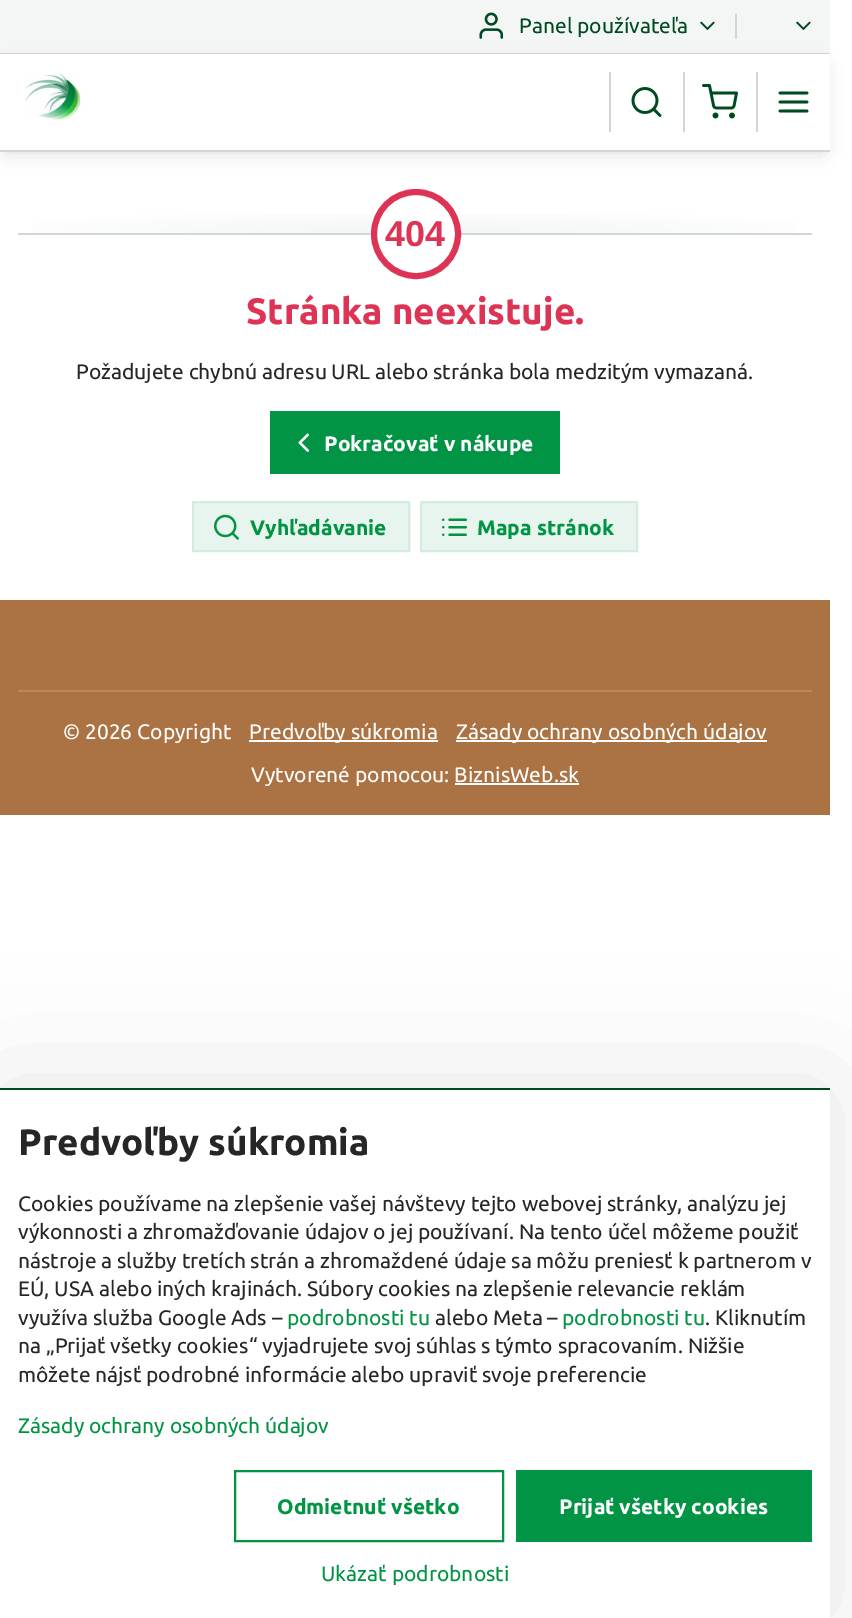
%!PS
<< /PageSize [852 1618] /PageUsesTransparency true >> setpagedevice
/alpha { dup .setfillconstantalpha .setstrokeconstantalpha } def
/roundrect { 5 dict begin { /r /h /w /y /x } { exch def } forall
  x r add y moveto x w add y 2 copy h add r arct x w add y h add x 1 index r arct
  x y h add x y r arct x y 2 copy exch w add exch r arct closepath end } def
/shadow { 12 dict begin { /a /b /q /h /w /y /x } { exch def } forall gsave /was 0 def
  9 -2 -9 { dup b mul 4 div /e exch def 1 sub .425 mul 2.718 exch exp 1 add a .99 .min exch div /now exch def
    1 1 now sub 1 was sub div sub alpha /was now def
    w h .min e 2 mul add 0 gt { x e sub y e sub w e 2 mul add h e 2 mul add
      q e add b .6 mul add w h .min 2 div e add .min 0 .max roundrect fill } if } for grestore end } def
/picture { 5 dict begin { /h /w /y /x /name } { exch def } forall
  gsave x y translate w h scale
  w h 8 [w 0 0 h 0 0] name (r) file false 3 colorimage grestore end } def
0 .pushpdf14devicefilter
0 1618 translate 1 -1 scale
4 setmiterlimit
1 setgray
0 0 852 1618 rectfill
0.957 0.965 0.961 setrgbcolor
0 0 830 53 rectfill
0.831 0.839 0.835 setrgbcolor
0 53 830 1 rectfill
735 14 2 25 rectfill
(img1.rgb) 479 12 25 27 picture
/Ubuntu-Regular [21 0 0 -21 0 0] selectfont
0 0.29 0.133 setrgbcolor
519 33 moveto (Panel používateľa) show
(img2.rgb) 700 21 15 9 picture
(img2.rgb) 796 21 15 9 picture
0 0 0.078 setrgbcolor
6 66 818 86 0 9 0.15 shadow
1 setgray
0 54 830 96 rectfill
0.831 0.839 0.835 setrgbcolor
0 150 830 2 rectfill
(img3.rgb) 24 72 57 49 picture
609 72 2 60 rectfill
(img4.rgb) 631 87 31 30 picture
683 72 2 60 rectfill
(img5.rgb) 702 84 36 35 picture
756 72 2 60 rectfill
(img6.rgb) 778 91 31 22 picture
18 233 794 2 rectfill
gsave newpath 33 214 moveto 797 214 lineto 797 233 lineto 33 233 lineto closepath clip newpath 415 233 translate 673 34 scale
<< /ShadingType 3 /ColorSpace /DeviceRGB /Coords [0 0 0 0 0 1] /Extend [true true] /Function << /FunctionType 3 /Domain [0 1] /Functions [<< /FunctionType 2 /Domain [0 1] /C0 [0.949 0.965 0.957] /C1 [1 1 1] /N 1 >> << /FunctionType 2 /Domain [0 1] /C0 [1 1 1] /C1 [1 1 1] /N 1 >>] /Bounds [0.7] /Encode [0 1 0 1] >> >> shfill grestore
1 setgray
newpath 416 234 42 0 360 arc closepath gsave fill grestore
0.867 0.2 0.333 setrgbcolor
6 setlinewidth
stroke
/LiberationSans-Bold [36 0 0 -36 0 0] selectfont
385 246 moveto (404) show
/Ubuntu-Bold [36.75 0 0 -36.75 0 0] selectfont
246 324 moveto (Stránka neexistuje.) show
/Ubuntu-Regular [21 0 0 -21 0 0] selectfont
0.149 setgray
76 379 moveto (Požadujete chybnú adresu URL alebo stránka bola medzitým vymazaná.) show
0.004 0.58 0.267 setrgbcolor
270 411 290 63 rectfill
(img7.rgb) 298 433 11 19 picture
/Ubuntu-Bold [21 0 0 -21 0 0] selectfont
1 setgray
324 451 moveto (Pokračovať v nákupe) show
0.91 0.961 0.933 setrgbcolor
newpath 193 502 moveto 409 502 lineto 409 551 lineto 193 551 lineto closepath gsave fill grestore
0.827 0.925 0.875 setrgbcolor
2 setlinewidth
stroke
(img8.rgb) 214 514 25 26 picture
0.004 0.58 0.267 setrgbcolor
250 535 moveto (Vyhľadávanie) show
0.91 0.961 0.933 setrgbcolor
newpath 421 502 moveto 637 502 lineto 637 551 lineto 421 551 lineto closepath gsave fill grestore
0.827 0.925 0.875 setrgbcolor
stroke
(img9.rgb) 442 518 25 18 picture
0.004 0.58 0.267 setrgbcolor
477 535 moveto (Mapa stránok) show
0.671 0.451 0.263 setrgbcolor
0 600 830 215 rectfill
0.722 0.533 0.373 setrgbcolor
18 690 794 2 rectfill
/Ubuntu-Regular [21 0 0 -21 0 0] selectfont
1 setgray
63 739 moveto (© 2026 Copyright) show
249 740 189 2 rectfill
249 739 moveto (Predvoľby súkromia) show
456 740 311 2 rectfill
456 739 moveto (Zásady ochrany osobných údajov) show
251 782 moveto (Vytvorené pomocou: BiznisWeb.sk) show
455 783 124 2 rectfill
gsave
newpath 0 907 moveto 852 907 lineto 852 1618 lineto 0 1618 lineto closepath 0 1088 moveto 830 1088 lineto 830 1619 lineto 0 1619 lineto closepath eoclip newpath
0 setgray
0 1088 830 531 0 60 0.1 shadow
grestore
0.95 alpha
829 1090 1 528 rectfill
1 alpha
0 0.29 0.133 setrgbcolor
0 1088 830 2 rectfill
/Ubuntu-Bold [36.75 0 0 -36.75 0 0] selectfont
0.149 setgray
18 1155 moveto (Predvoľby súkromia) show
/Ubuntu-Regular [21 0 0 -21 0 0] selectfont
18 1211 moveto (Cookies používame na zlepšenie vašej návštevy tejto webovej stránky, analýzu jej) show
18 1239 moveto (výkonnosti a zhromažďovanie údajov o jej používaní. Na tento účel môžeme použiť) show
18 1268 moveto (nástroje a služby tretích strán a zhromaždené údaje sa môžu preniesť k partnerom v) show
18 1296 moveto (EÚ, USA alebo iných krajinách. Súbory cookies na zlepšenie relevancie reklám) show
18 1325 moveto (využíva služba Google Ads –) show
0.004 0.58 0.267 setrgbcolor
287 1325 moveto (podrobnosti tu) show
0.149 setgray
435 1325 moveto (alebo Meta –) show
0.004 0.58 0.267 setrgbcolor
562 1325 moveto (podrobnosti tu) show
0.149 setgray
705 1325 moveto (. Kliknutím) show
18 1353 moveto (na „Prijať všetky cookies“ vyjadrujete svoj súhlas s týmto spracovaním. Nižšie) show
18 1382 moveto (môžete nájsť podrobné informácie alebo upraviť svoje preferencie) show
0.004 0.58 0.267 setrgbcolor
18 1433 moveto (Zásady ochrany osobných údajov) show
235 1471 268 70 rectstroke
/Ubuntu-Bold [21 0 0 -21 0 0] selectfont
277 1514 moveto (Odmietnuť všetko) show
516 1470 296 72 rectfill
1 setgray
559 1514 moveto (Prijať všetky cookies) show
/Ubuntu-Regular [21 0 0 -21 0 0] selectfont
0.004 0.58 0.267 setrgbcolor
321 1581 moveto (Ukázať podrobnosti) show
.poppdf14devicefilter showpage
